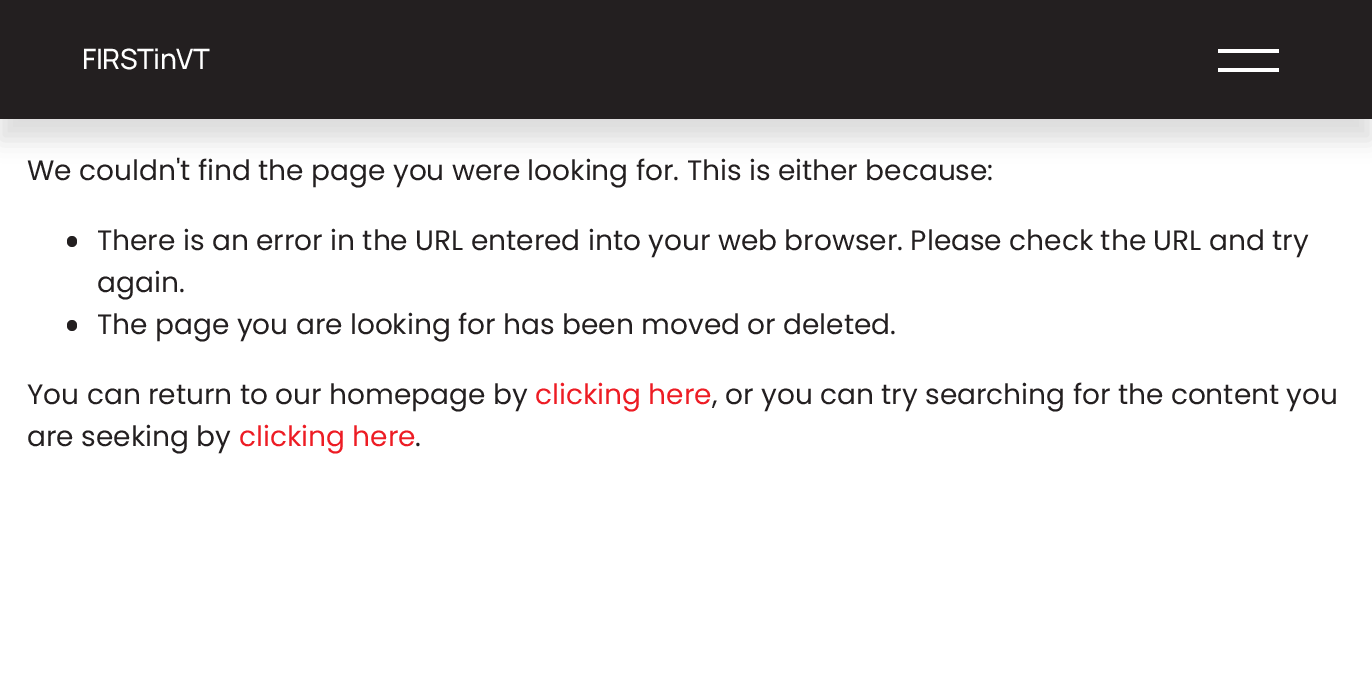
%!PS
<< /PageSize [1372 699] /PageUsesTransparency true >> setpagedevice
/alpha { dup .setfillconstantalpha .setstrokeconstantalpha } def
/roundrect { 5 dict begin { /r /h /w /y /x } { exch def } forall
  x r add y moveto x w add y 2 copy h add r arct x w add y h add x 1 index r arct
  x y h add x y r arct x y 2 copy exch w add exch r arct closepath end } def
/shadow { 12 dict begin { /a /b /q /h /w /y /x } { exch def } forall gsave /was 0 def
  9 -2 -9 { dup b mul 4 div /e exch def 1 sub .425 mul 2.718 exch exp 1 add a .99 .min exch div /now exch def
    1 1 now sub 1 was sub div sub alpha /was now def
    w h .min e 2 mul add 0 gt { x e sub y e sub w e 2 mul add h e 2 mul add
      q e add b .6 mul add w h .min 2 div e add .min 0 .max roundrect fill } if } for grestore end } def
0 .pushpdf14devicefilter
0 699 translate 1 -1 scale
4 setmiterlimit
1 setgray
0 0 1372 699 rectfill
0.137 0.122 0.125 setrgbcolor
0 21 1372 119 0 10.5 0.15 shadow
0 0 1372 119 rectfill
/Manrope-Medium [28 0 0 -28 0 0] selectfont
1 setgray
82 69 moveto -0.5 0 (FIRSTinVT) ashow
1218 49 61 4 rectfill
1218 68 61 4 rectfill
/Poppins-Regular [28 0 0 -28 0 0] selectfont
0.137 0.122 0.125 setrgbcolor
27 180 moveto (We couldn't find the page you were looking for. This is either because:) show
67 236 10 11 5 roundrect fill
97 250 moveto (There is an error in the URL entered into your web browser. Please check the URL and try) show
97 292 moveto (again.) show
67 320 10 11 5 roundrect fill
97 334 moveto (The page you are looking for has been moved or deleted.) show
27 404 moveto (You can return to our homepage by) show
0.929 0.11 0.141 setrgbcolor
535 404 moveto (clicking here) show
0.137 0.122 0.125 setrgbcolor
712 404 moveto (, or you can try searching for the content you) show
27 446 moveto (are seeking by) show
0.929 0.11 0.141 setrgbcolor
239 446 moveto (clicking here) show
0.137 0.122 0.125 setrgbcolor
415 446 moveto (.) show
.poppdf14devicefilter showpage
